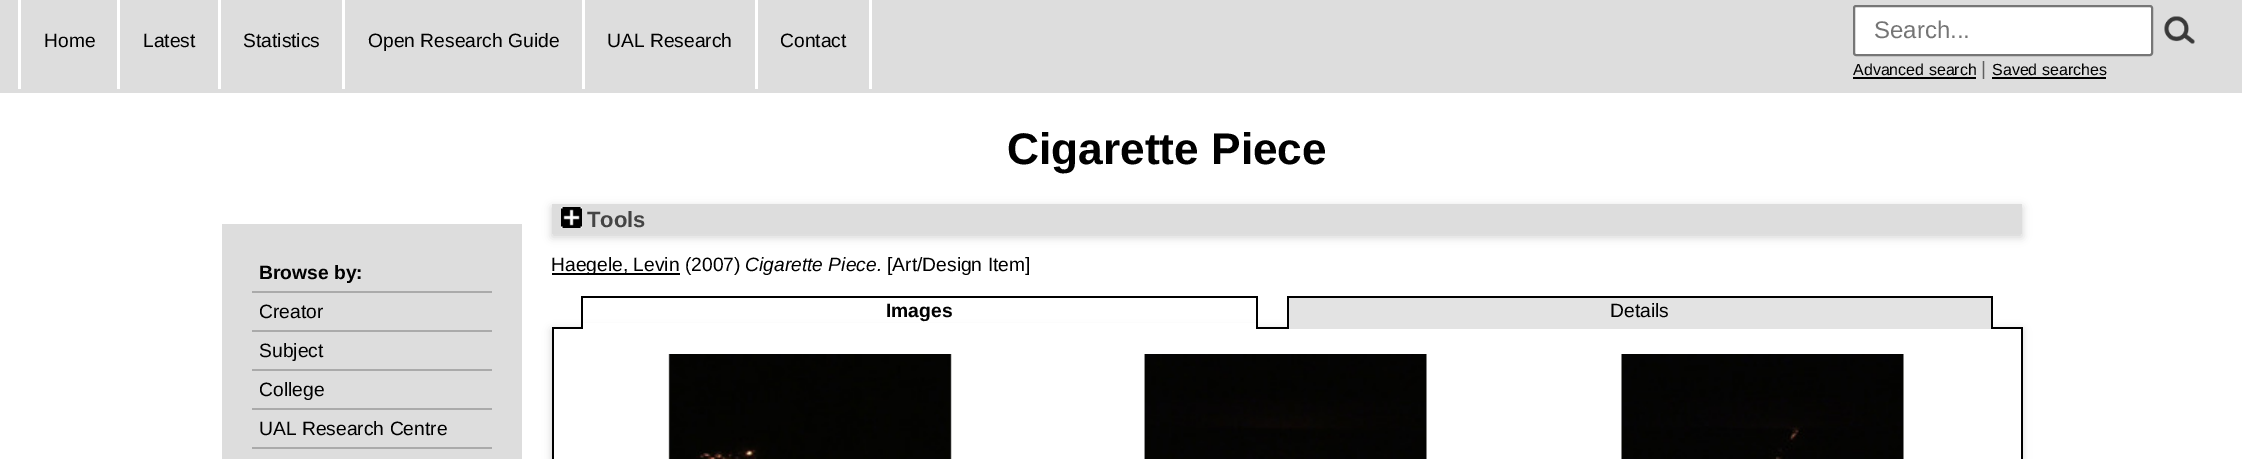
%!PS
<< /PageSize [2242 459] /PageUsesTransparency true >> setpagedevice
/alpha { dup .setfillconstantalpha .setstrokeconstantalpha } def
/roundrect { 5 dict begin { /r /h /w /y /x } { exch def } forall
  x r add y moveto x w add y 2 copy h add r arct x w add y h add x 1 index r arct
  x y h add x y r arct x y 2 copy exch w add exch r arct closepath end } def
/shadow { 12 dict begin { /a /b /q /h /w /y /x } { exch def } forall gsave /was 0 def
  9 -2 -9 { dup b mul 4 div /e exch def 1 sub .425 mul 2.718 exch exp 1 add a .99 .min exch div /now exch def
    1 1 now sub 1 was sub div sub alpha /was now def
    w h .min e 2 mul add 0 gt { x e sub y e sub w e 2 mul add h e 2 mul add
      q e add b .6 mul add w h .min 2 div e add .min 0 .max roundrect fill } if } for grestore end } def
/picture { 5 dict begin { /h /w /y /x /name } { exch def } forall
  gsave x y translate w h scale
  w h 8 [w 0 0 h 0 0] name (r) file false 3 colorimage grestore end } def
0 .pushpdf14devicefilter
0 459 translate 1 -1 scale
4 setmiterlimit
1 setgray
0 0 2242 459 rectfill
0.867 setgray
0 0 2242 93 rectfill
1 setgray
18 0 3 89 rectfill
/LiberationSans-Regular [19.25 0 0 -19.25 0 0] selectfont
0 setgray
44 47 moveto (Home) show
1 setgray
117 0 3 89 rectfill
0 setgray
143 47 moveto (Latest) show
1 setgray
218 0 3 89 rectfill
0 setgray
243 47 moveto (Statistics) show
1 setgray
342 0 3 89 rectfill
0 setgray
368 47 moveto (Open Research Guide) show
1 setgray
582 0 3 89 rectfill
0 setgray
607 47 moveto (UAL Research) show
1 setgray
869 0 3 89 rectfill
755 0 3 89 rectfill
0 setgray
780 47 moveto (Contact) show
1 setgray
1854 6 298 49 2 roundrect gsave fill grestore
0.463 setgray
2 setlinewidth
stroke
/LiberationSans-Regular [24 0 0 -24 0 0] selectfont
0.459 setgray
1874 38 moveto (Search...) show
(img1.rgb) 2164 16 31 28 picture
/LiberationSans-Regular [16 0 0 -16 0 0] selectfont
0 setgray
1853 75 moveto (Advanced search) show
1853 77 123 2 rectfill
/LiberationSans-Regular [19.25 0 0 -19.25 0 0] selectfont
0.376 setgray
1981 75 moveto (|) show
/LiberationSans-Regular [16 0 0 -16 0 0] selectfont
0 setgray
1992 75 moveto (Saved searches) show
1992 77 114 2 rectfill
/LiberationSans-Bold [44.25 0 0 -44.25 0 0] selectfont
1007 164 moveto (Cigarette Piece) show
0.867 setgray
222 224 300 235 rectfill
0.667 setgray
252 291 240 2 rectfill
/LiberationSans-Bold [19.25 0 0 -19.25 0 0] selectfont
0 setgray
259 279 moveto (Browse by:) show
0.667 setgray
252 330 240 2 rectfill
/LiberationSans-Regular [19.25 0 0 -19.25 0 0] selectfont
0 setgray
259 318 moveto (Creator) show
0.667 setgray
252 369 240 2 rectfill
0 setgray
259 357 moveto (Subject) show
0.667 setgray
252 408 240 2 rectfill
0 setgray
259 396 moveto (College) show
0.667 setgray
252 447 240 2 rectfill
0 setgray
259 435 moveto (UAL Research Centre) show
0.392 setgray
552 207 1470 30 0 4.5 0.3 shadow
0.867 setgray
552 204 1470 30 rectfill
(img2.rgb) 561 207 21 21 picture
/LiberationSans-Bold [22 0 0 -22 0 0] selectfont
0.267 setgray
587 227 moveto (Tools) show
0 setgray
552 273 128 2 rectfill
/LiberationSans-Regular [19.25 0 0 -19.25 0 0] selectfont
551 271 moveto (Haegele, Levin \(2007\)) show
/LiberationSans-Italic [19.25 0 0 -19.25 0 0] selectfont
745 271 moveto (Cigarette Piece.) show
/LiberationSans-Regular [19.25 0 0 -19.25 0 0] selectfont
887 271 moveto ([Art/Design Item]) show
gsave
newpath 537 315 moveto 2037 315 lineto 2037 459 lineto 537 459 lineto closepath 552 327 moveto 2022 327 lineto 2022 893 lineto 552 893 lineto closepath eoclip newpath
0.392 setgray
552 330 1470 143 0 4.5 0.3 shadow
grestore
552 327 2 132 rectfill
552 327 735 2 rectfill
1 setgray
583 323 673 6 rectfill
0 setgray
581 296 676 2 rectfill
1256 296 2 33 rectfill
581 296 2 33 rectfill
/LiberationSans-Bold [19.25 0 0 -19.25 0 0] selectfont
886 317 moveto (Images) show
2021 327 2 132 rectfill
1993 327 29 2 rectfill
0.89 setgray
1289 298 702 31 rectfill
0 setgray
1287 296 705 2 rectfill
1991 296 2 33 rectfill
1287 296 2 33 rectfill
/LiberationSans-Regular [19.25 0 0 -19.25 0 0] selectfont
1610 317 moveto (Details) show
(img3.rgb) 668 354 284 105 picture
(img4.rgb) 1144 354 283 105 picture
(img5.rgb) 1621 354 283 105 picture
.poppdf14devicefilter showpage
